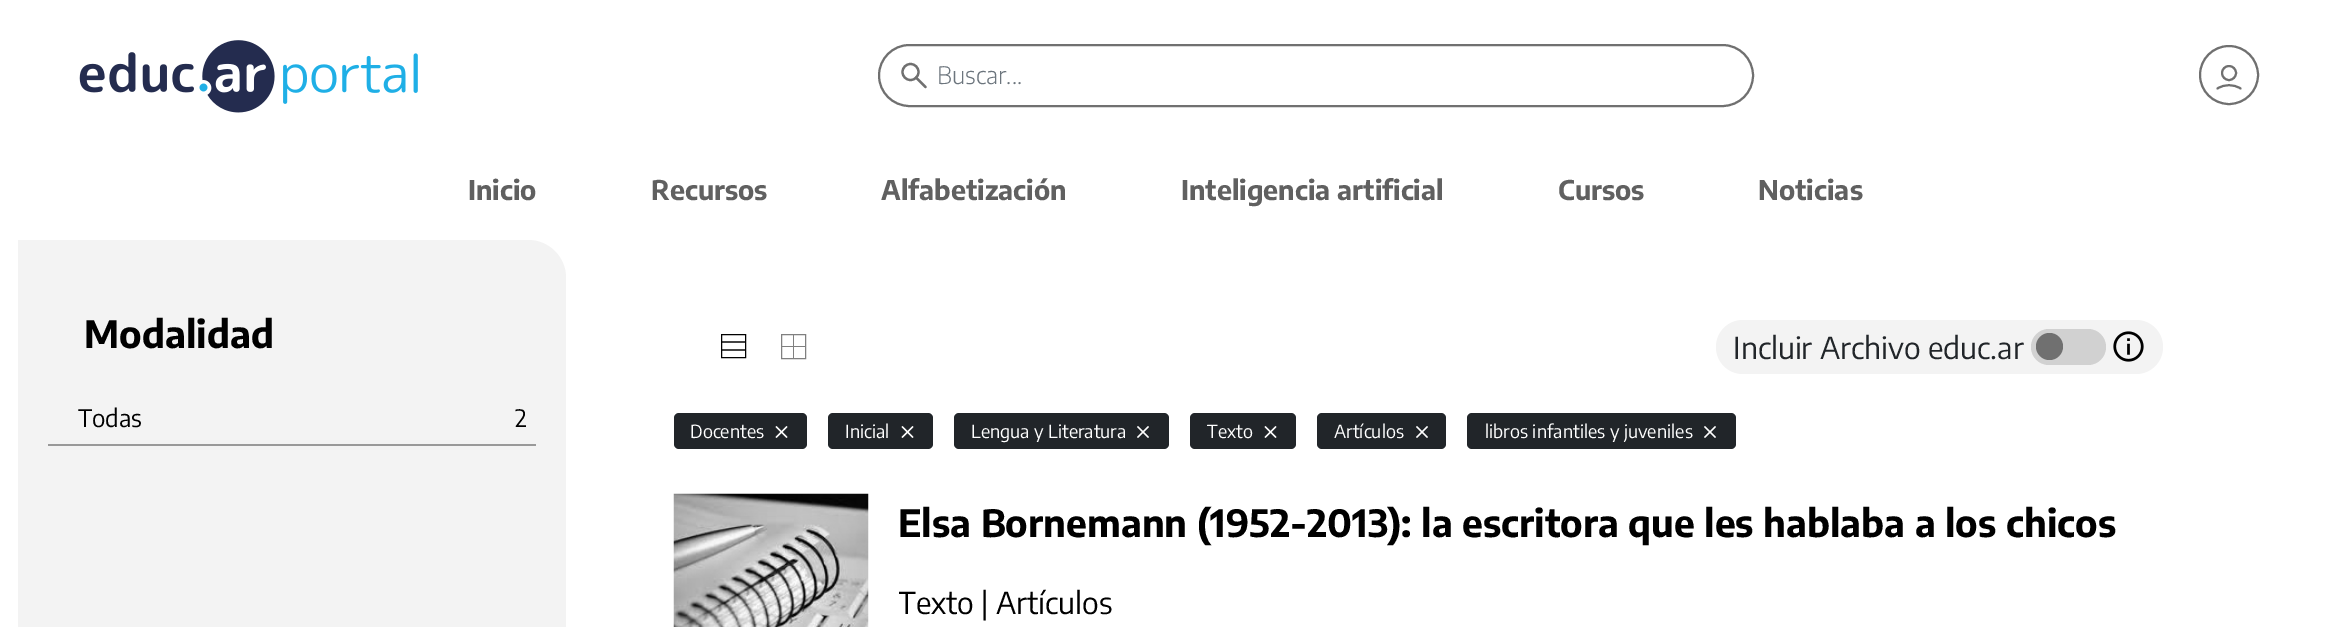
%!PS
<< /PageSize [2331 627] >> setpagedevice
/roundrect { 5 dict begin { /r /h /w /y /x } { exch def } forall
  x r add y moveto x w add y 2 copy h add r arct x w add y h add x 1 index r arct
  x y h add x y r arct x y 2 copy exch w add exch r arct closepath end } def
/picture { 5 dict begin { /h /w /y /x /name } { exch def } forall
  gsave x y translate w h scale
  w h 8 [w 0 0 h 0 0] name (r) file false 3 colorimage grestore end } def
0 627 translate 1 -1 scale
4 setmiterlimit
1 setgray
0 0 2331 627 rectfill
(img1.rgb) 79 40 339 73 picture
0.439 setgray
2 setlinewidth
879 45 874 61 30.5 roundrect stroke
2.2 setlinewidth
newpath 910.5 72 8 0 360 arc closepath stroke
1 setlinecap
1 setlinejoin
newpath 925.5 87 moveto 916 77.5 lineto stroke
/EncodeSansCondensed-Light [24 0 0 -24 0 0] selectfont
0.424 0.459 0.49 setrgbcolor
937 84 moveto (Buscar...) show
0.439 setgray
2 setlinewidth
0 setlinecap
0 setlinejoin
newpath 2229 75 29 0 360 arc closepath stroke
newpath 2229 73 7 0 360 arc closepath stroke
1 setlinecap
1 setlinejoin
newpath 2217.5 88.5 moveto 2224.5 84 2233.5 84 2240.5 88.5 curveto stroke
/EncodeSansCondensed-Bold [27 0 0 -27 0 0] selectfont
0.376 setgray
468 200 moveto (Inicio) show
651 200 moveto (Recursos) show
881 200 moveto (Alfabetización) show
1181 200 moveto (Inteligencia artificial) show
1558 200 moveto (Cursos) show
1758 200 moveto (Noticias) show
0.953 setgray
newpath 18 240 moveto 528 240 lineto 549 240 566 257 566 278 curveto 566 627 lineto 566 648 549 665 528 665 curveto 18 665 lineto closepath fill
/EncodeSansCondensed-Bold [37.5 0 0 -37.5 0 0] selectfont
0 setgray
84 348 moveto (Modalidad) show
0.6 setgray
48 444 488 2 rectfill
/EncodeSansCondensed-Regular [24 0 0 -24 0 0] selectfont
0 setgray
78 427 moveto (Todas) show
515 427 moveto (2) show
1 setlinewidth
0 setlinecap
0 setlinejoin
721.5 334.5 24 23 rectstroke
1.2 setlinewidth
newpath 722 342 moveto 745 342 lineto 722 350 moveto 745 350 lineto stroke
0.502 setgray
1 setlinewidth
781.5 334.5 24 24 rectstroke
782 346 23 1 rectfill
793 335 1 23 rectfill
0.953 setgray
1716 320 447 54 27 roundrect fill
/EncodeSansCondensed-Regular [30 0 0 -30 0 0] selectfont
0.129 0.145 0.161 setrgbcolor
1733 359 moveto (Incluir Archivo educ.ar) show
0.82 setgray
2031 329 75 36 18 roundrect fill
0.439 setgray
newpath 2049.5 346.5 13.5 0 360 arc closepath fill
(img2.rgb) 2113 331 31 31 picture
0.129 0.145 0.161 setrgbcolor
674 413 133 36 5 roundrect fill
/EncodeSansCondensed-Regular [18 0 0 -18 0 0] selectfont
1 setgray
690 438 moveto (Docentes) show
(img3.rgb) 775 426 13 12 picture
0.129 0.145 0.161 setrgbcolor
828 413 105 36 5 roundrect fill
1 setgray
845 438 moveto (Inicial) show
(img3.rgb) 901 426 13 12 picture
0.129 0.145 0.161 setrgbcolor
954 413 215 36 5 roundrect fill
1 setgray
971 438 moveto (Lengua y Literatura) show
(img4.rgb) 1137 426 12 12 picture
0.129 0.145 0.161 setrgbcolor
1190 413 106 36 5 roundrect fill
1 setgray
1207 438 moveto (Texto) show
(img3.rgb) 1264 426 13 12 picture
0.129 0.145 0.161 setrgbcolor
1317 413 129 36 5 roundrect fill
1 setgray
1334 438 moveto (Artículos) show
(img4.rgb) 1416 426 12 12 picture
0.129 0.145 0.161 setrgbcolor
1467 413 269 36 5 roundrect fill
1 setgray
1485 438 moveto (libros infantiles y juveniles) show
(img4.rgb) 1704 426 12 12 picture
(img5.rgb) 673 493 196 134 picture
/EncodeSansCondensed-Bold [37.45 0 0 -37.45 0 0] selectfont
0 setgray
898 537 moveto (Elsa Bornemann \(1952-2013\): la escritora que les hablaba a los chicos) show
gsave
899 494 1264 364 rectclip
/EncodeSansCondensed-Regular [30 0 0 -30 0 0] selectfont
898 614 moveto (Texto) show
grestore
/EncodeSansCondensed-Regular [30 0 0 -30 0 0] selectfont
981 614 moveto (| Artículos) show
showpage
